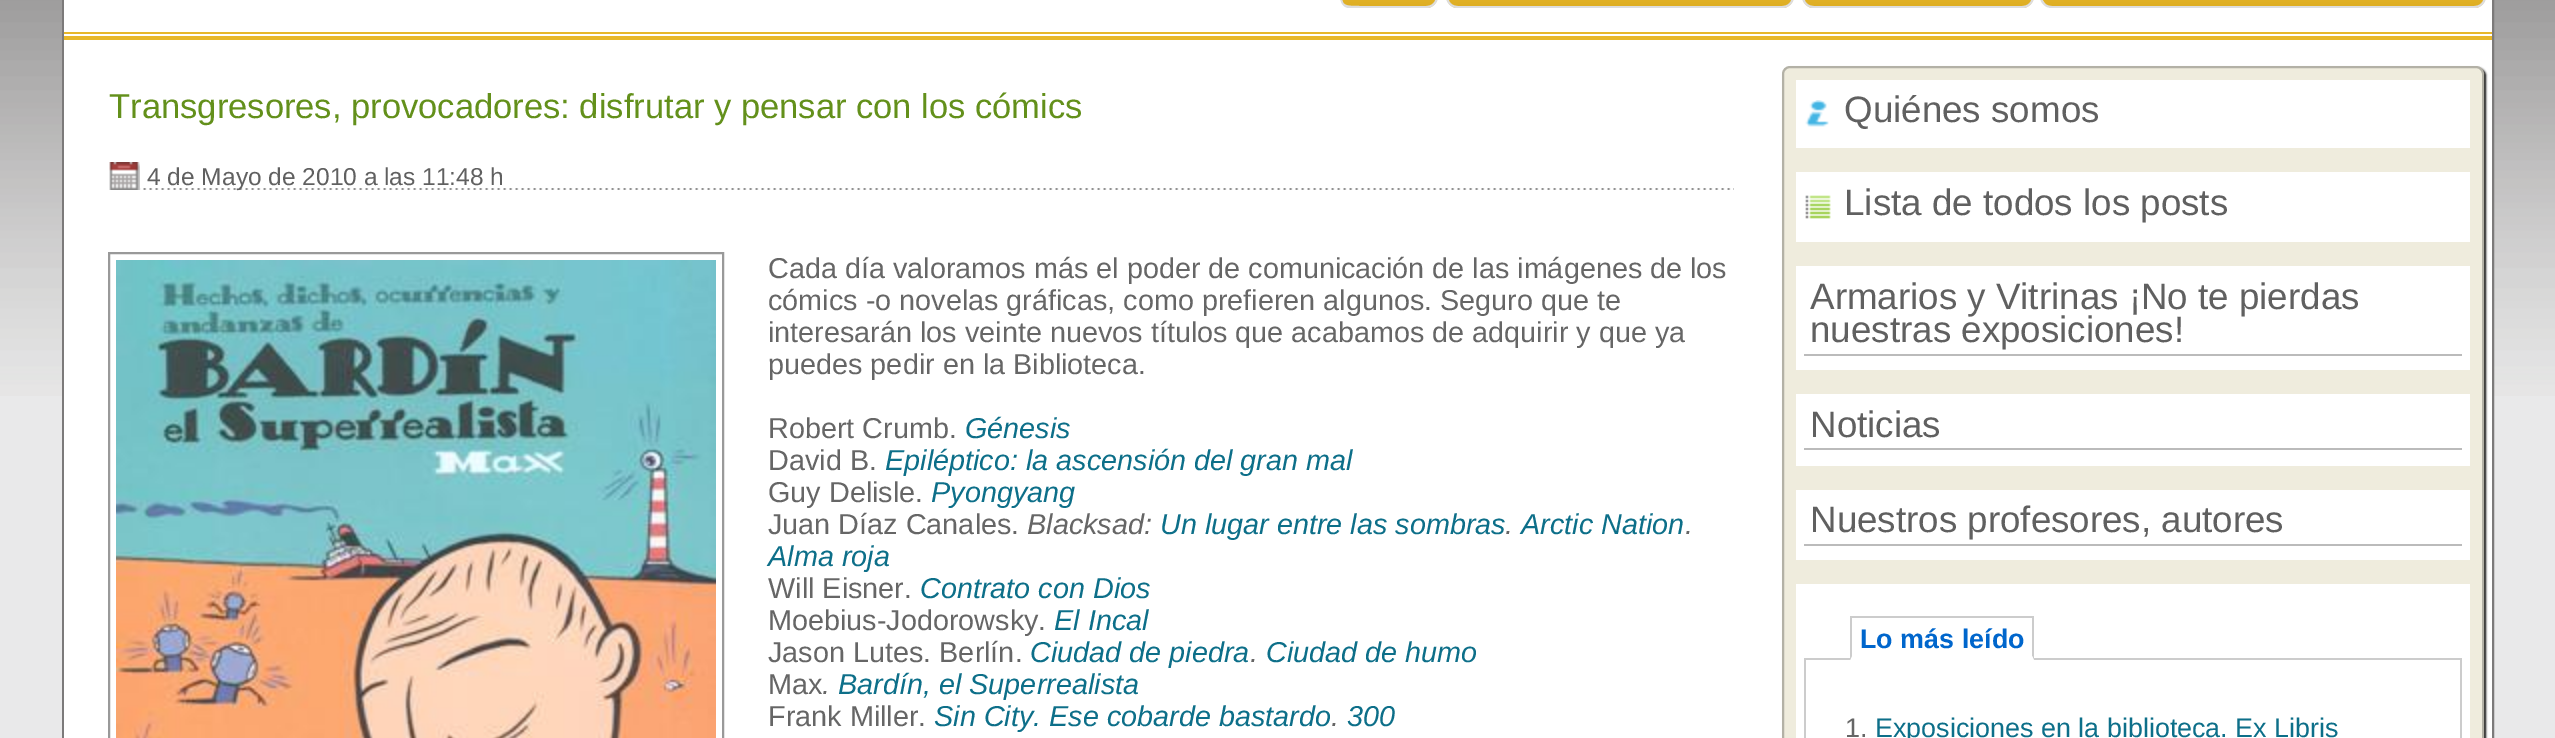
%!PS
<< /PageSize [2555 738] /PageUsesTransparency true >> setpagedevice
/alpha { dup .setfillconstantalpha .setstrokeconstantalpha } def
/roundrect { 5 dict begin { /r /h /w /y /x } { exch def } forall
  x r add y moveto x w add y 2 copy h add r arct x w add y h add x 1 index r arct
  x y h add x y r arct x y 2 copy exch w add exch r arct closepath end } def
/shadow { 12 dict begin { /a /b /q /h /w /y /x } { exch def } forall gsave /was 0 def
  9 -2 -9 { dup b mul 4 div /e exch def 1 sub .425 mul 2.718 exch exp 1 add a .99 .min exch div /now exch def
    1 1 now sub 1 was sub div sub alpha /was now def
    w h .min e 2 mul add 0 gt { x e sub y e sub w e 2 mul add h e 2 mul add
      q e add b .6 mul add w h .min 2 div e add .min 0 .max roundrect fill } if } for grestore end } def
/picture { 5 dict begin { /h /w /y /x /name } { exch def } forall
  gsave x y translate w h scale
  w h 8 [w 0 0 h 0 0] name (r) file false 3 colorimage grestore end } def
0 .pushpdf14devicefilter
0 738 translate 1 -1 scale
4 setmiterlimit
0.914 0.914 0.918 setrgbcolor
0 0 2555 738 rectfill
(img1.rgb) 0 0 2555 396 picture
0.486 0.478 0.478 setrgbcolor
2 setlinewidth
63 -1 2430 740 rectstroke
1 setgray
64 0 2428 32 rectfill
0.906 0.718 0.165 setrgbcolor
64 32 2428 2 rectfill
(img2.rgb) 1340 0 98 8 picture
0.867 setgray
newpath 1350 -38 moveto 1360 -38 lineto 1360 8 lineto 1348 8 lineto 1338 6 1340 -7 1340 -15 curveto 1340 -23 1338 -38 1350 -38 curveto closepath 1350 -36 moveto 1360 -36 lineto 1360 6 lineto 1340 6 1342 5 1342 -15 curveto 1342 -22 1339 -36 1350 -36 curveto closepath eofill
newpath 1360 -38 moveto 1426 -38 lineto 1433 -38 1438 -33 1438 -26 curveto 1438 -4 lineto 1438 3 1433 8 1426 8 curveto 1360 8 lineto closepath 1360 -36 moveto 1426 -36 lineto 1432 -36 1436 -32 1436 -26 curveto 1436 -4 lineto 1436 2 1432 6 1426 6 curveto 1360 6 lineto closepath eofill
(img3.rgb) 1446 0 348 8 picture
newpath 1458 -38 moveto 1476 -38 lineto 1476 8 lineto 1458 8 lineto 1451 8 1446 3 1446 -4 curveto 1446 -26 lineto 1446 -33 1451 -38 1458 -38 curveto closepath 1458 -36 moveto 1476 -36 lineto 1476 6 lineto 1458 6 lineto 1452 6 1448 2 1448 -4 curveto 1448 -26 lineto 1448 -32 1452 -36 1458 -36 curveto closepath eofill
newpath 1476 -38 moveto 1782 -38 lineto 1789 -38 1794 -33 1794 -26 curveto 1794 -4 lineto 1794 3 1789 8 1782 8 curveto 1476 8 lineto closepath 1476 -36 moveto 1782 -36 lineto 1788 -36 1792 -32 1792 -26 curveto 1792 -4 lineto 1792 2 1788 6 1782 6 curveto 1476 6 lineto closepath eofill
(img4.rgb) 1802 0 232 8 picture
newpath 1814 -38 moveto 1834 -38 lineto 1834 8 lineto 1814 8 lineto 1807 8 1802 3 1802 -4 curveto 1802 -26 lineto 1802 -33 1807 -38 1814 -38 curveto closepath 1814 -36 moveto 1834 -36 lineto 1834 6 lineto 1814 6 lineto 1808 6 1804 2 1804 -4 curveto 1804 -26 lineto 1804 -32 1808 -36 1814 -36 curveto closepath eofill
newpath 1834 -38 moveto 2022 -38 lineto 2029 -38 2034 -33 2034 -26 curveto 2034 -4 lineto 2034 3 2029 8 2022 8 curveto 1834 8 lineto closepath 1834 -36 moveto 2022 -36 lineto 2028 -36 2032 -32 2032 -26 curveto 2032 -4 lineto 2032 2 2028 6 2022 6 curveto 1834 6 lineto closepath eofill
(img5.rgb) 2042 0 444 8 picture
newpath 2052 -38 moveto 2198 -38 lineto 2198 8 lineto 2052 8 lineto 2045 8 2040 3 2040 -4 curveto 2040 -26 lineto 2040 -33 2045 -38 2052 -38 curveto closepath 2052 -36 moveto 2198 -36 lineto 2198 6 lineto 2052 6 lineto 2046 6 2042 2 2042 -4 curveto 2042 -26 lineto 2042 -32 2046 -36 2052 -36 curveto closepath eofill
2198 6 20 2 rectfill
newpath 2218 -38 moveto 2474 -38 lineto 2481 -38 2486 -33 2486 -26 curveto 2486 -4 lineto 2486 3 2481 8 2474 8 curveto 2218 8 lineto closepath 2218 -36 moveto 2474 -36 lineto 2480 -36 2484 -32 2484 -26 curveto 2484 -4 lineto 2484 2 2480 6 2474 6 curveto 2218 6 lineto closepath eofill
1 setgray
64 34 2428 704 rectfill
0.906 0.718 0.165 setrgbcolor
64 36 2428 4 rectfill
/LiberationSans-Regular [34.55 0 0 -34.55 0 0] selectfont
0.388 0.565 0.106 setrgbcolor
109 118 moveto (Transgresores, provocadores: disfrutar y pensar con los cómics) show
(img6.rgb) 140 188 1594 2 picture
(img7.rgb) 108 162 32 28 picture
/LiberationSans-Regular [24.5 0 0 -24.5 0 0] selectfont
0.376 setgray
147 185 moveto (4 de Mayo de 2010 a las 11:48 h) show
0.6 setgray
109 253 614 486 rectstroke
(img8.rgb) 116 260 600 478 picture
/LiberationSans-Regular [28.8 0 0 -28.8 0 0] selectfont
0.4 setgray
768 278 moveto (Cada día valoramos más el poder de comunicación de las imágenes de los) show
768 310 moveto (cómics -o novelas gráficas, como prefieren algunos. Seguro que te) show
768 342 moveto (interesarán los veinte nuevos títulos que acabamos de adquirir y que ya) show
768 374 moveto (puedes pedir en la Biblioteca.) show
768 438 moveto (Robert Crumb.) show
/LiberationSans-Italic [28.8 0 0 -28.8 0 0] selectfont
0.051 0.435 0.537 setrgbcolor
965 438 moveto (Génesis) show
/LiberationSans-Regular [28.8 0 0 -28.8 0 0] selectfont
0.4 setgray
768 470 moveto (David B.) show
/LiberationSans-Italic [28.8 0 0 -28.8 0 0] selectfont
0.051 0.435 0.537 setrgbcolor
885 470 moveto (Epiléptico: la ascensión del gran mal) show
/LiberationSans-Regular [28.8 0 0 -28.8 0 0] selectfont
0.4 setgray
768 502 moveto (Guy Delisle.) show
/LiberationSans-Italic [28.8 0 0 -28.8 0 0] selectfont
0.051 0.435 0.537 setrgbcolor
931 502 moveto (Pyongyang) show
/LiberationSans-Regular [28.8 0 0 -28.8 0 0] selectfont
0.4 setgray
768 534 moveto (Juan Díaz Canales.) show
/LiberationSans-Italic [28.8 0 0 -28.8 0 0] selectfont
1027 534 moveto (Blacksad:) show
0.051 0.435 0.537 setrgbcolor
1160 534 moveto (Un lugar entre las sombras) show
0.4 setgray
1505 534 moveto (.) show
0.051 0.435 0.537 setrgbcolor
1521 534 moveto (Arctic Nation) show
0.4 setgray
1685 534 moveto (.) show
0.051 0.435 0.537 setrgbcolor
768 566 moveto (Alma roja) show
/LiberationSans-Regular [28.8 0 0 -28.8 0 0] selectfont
0.4 setgray
768 598 moveto (Will Eisner.) show
/LiberationSans-Italic [28.8 0 0 -28.8 0 0] selectfont
0.051 0.435 0.537 setrgbcolor
920 598 moveto (Contrato con Dios) show
/LiberationSans-Regular [28.8 0 0 -28.8 0 0] selectfont
0.4 setgray
768 630 moveto (Moebius-Jodorowsky.) show
/LiberationSans-Italic [28.8 0 0 -28.8 0 0] selectfont
0.051 0.435 0.537 setrgbcolor
1054 630 moveto (El Incal) show
/LiberationSans-Regular [28.8 0 0 -28.8 0 0] selectfont
0.4 setgray
768 662 moveto (Jason Lutes. Berlín.) show
/LiberationSans-Italic [28.8 0 0 -28.8 0 0] selectfont
0.051 0.435 0.537 setrgbcolor
1030 662 moveto (Ciudad de piedra) show
0.4 setgray
1250 662 moveto (.) show
0.051 0.435 0.537 setrgbcolor
1266 662 moveto (Ciudad de humo) show
/LiberationSans-Regular [28.8 0 0 -28.8 0 0] selectfont
0.4 setgray
768 694 moveto (Max) show
/LiberationSans-Italic [28.8 0 0 -28.8 0 0] selectfont
822 694 moveto (.) show
0.051 0.435 0.537 setrgbcolor
838 694 moveto (Bardín, el Superrealista) show
/LiberationSans-Regular [28.8 0 0 -28.8 0 0] selectfont
0.4 setgray
768 726 moveto (Frank Miller.) show
/LiberationSans-Italic [28.8 0 0 -28.8 0 0] selectfont
0.051 0.435 0.537 setrgbcolor
934 726 moveto (Sin City. Ese cobarde bastardo) show
0.4 setgray
1331 726 moveto (.) show
0.051 0.435 0.537 setrgbcolor
1347 726 moveto (300) show
0 setgray
1784 68 702 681 8 1 1 shadow
0.937 0.925 0.867 setrgbcolor
1783 67 700 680 7 roundrect gsave fill grestore
0.702 0.694 0.651 setrgbcolor
stroke
1 setgray
1796 80 674 68 rectfill
(img9.rgb) 1805 100 24 27 picture
/LiberationSans-Regular [36.75 0 0 -36.75 0 0] selectfont
0.376 setgray
1844 122 moveto (Quiénes somos) show
1 setgray
1796 172 674 70 rectfill
(img10.rgb) 1805 195 26 24 picture
0.376 setgray
1844 215 moveto (Lista de todos los posts) show
1 setgray
1796 266 674 104 rectfill
0.733 setgray
1804 354 658 2 rectfill
0.376 setgray
1810 309 moveto (Armarios y Vitrinas ¡No te pierdas) show
1810 342 moveto (nuestras exposiciones!) show
1 setgray
1796 394 674 72 rectfill
0.733 setgray
1804 448 658 2 rectfill
0.376 setgray
1810 437 moveto (Noticias) show
1 setgray
1796 490 674 70 rectfill
0.733 setgray
1804 544 658 2 rectfill
0.376 setgray
1810 532 moveto (Nuestros profesores, autores) show
1 setgray
1796 584 674 154 rectfill
0.8 setgray
1804 658 658 2 rectfill
/LiberationSans-Bold [26.9 0 0 -26.9 0 0] selectfont
0 0.4 0.8 setrgbcolor
1860 648 moveto (Lo más leído) show
0.8 setgray
1850 616 184 2 rectfill
newpath 2034 616 moveto 2034 660 lineto 2032 656 lineto 2032 618 lineto closepath fill
1 setgray
newpath 2034 660 moveto 1850 660 lineto 1852 656 lineto 2032 656 lineto closepath fill
0.8 setgray
newpath 1850 660 moveto 1850 616 lineto 1852 618 lineto 1852 656 lineto closepath fill
2460 660 2 78 rectfill
1804 660 2 78 rectfill
/LiberationSans-Regular [26.9 0 0 -26.9 0 0] selectfont
0.4 setgray
1845 737 moveto (1.) show
0.051 0.435 0.537 setrgbcolor
1875 737 moveto (Exposiciones en la biblioteca. Ex Libris) show
.poppdf14devicefilter showpage
